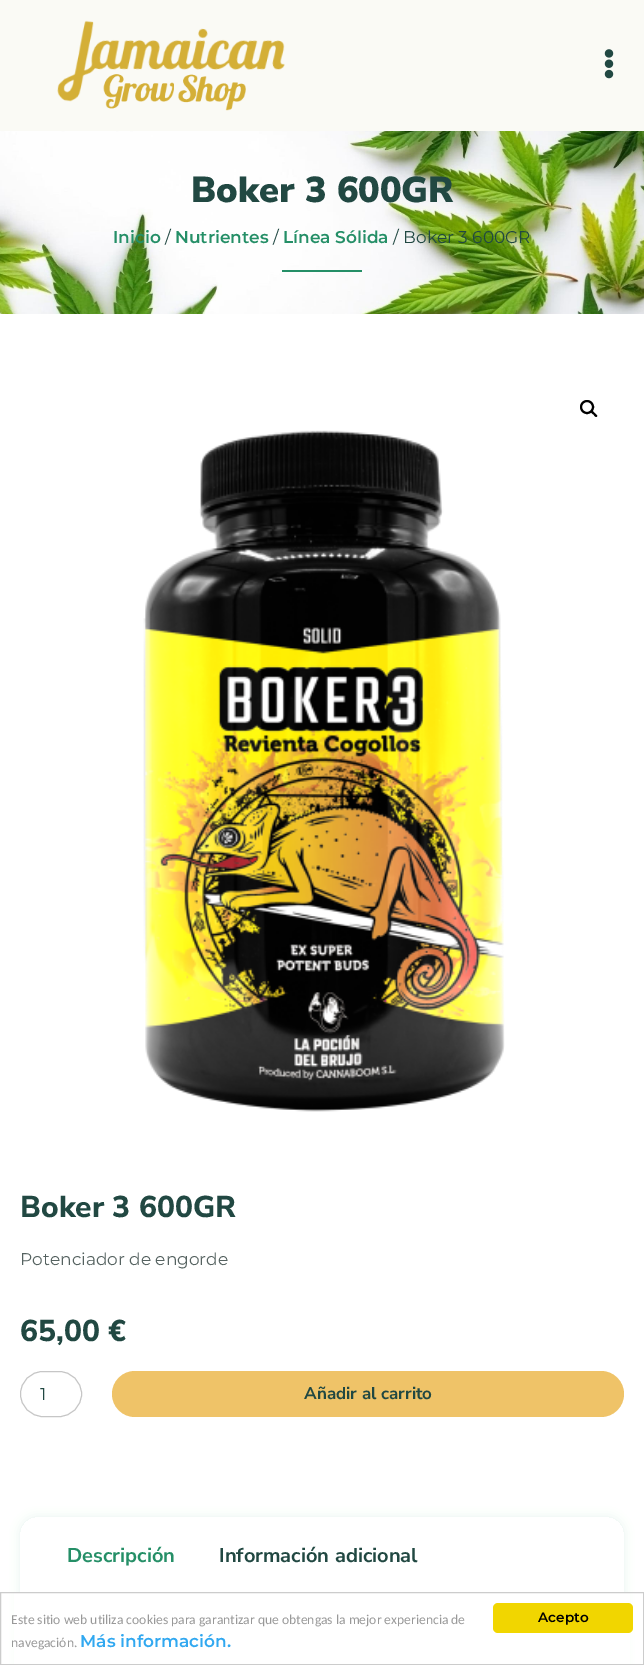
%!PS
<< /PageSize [644 1665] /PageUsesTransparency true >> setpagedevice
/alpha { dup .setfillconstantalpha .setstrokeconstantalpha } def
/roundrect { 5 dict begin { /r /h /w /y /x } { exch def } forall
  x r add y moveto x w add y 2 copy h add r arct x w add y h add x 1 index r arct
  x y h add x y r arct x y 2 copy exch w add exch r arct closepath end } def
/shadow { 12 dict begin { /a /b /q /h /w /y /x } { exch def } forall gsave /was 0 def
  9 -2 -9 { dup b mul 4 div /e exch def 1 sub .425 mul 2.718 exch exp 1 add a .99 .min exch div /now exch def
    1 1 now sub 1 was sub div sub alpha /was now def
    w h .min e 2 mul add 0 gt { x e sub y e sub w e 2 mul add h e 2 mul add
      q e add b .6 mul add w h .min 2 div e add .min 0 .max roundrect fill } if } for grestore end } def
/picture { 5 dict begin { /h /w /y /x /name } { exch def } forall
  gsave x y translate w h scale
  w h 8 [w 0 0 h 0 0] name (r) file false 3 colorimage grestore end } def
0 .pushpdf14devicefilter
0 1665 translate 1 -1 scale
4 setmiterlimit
1 setgray
0 0 644 1665 rectfill
0.98 0.98 0.961 setrgbcolor
0 0 644 131 rectfill
(img1.rgb) 57 20 228 91 picture
(img2.rgb) 604 49 10 30 picture
(img3.rgb) 0 131 644 183 picture
/NunitoSans-Black [36 0 0 -36 0 0] selectfont
0.129 0.282 0.259 setrgbcolor
191 202 moveto (Boker 3 600GR) show
/Montserrat-SemiBold [17 0 0 -17 0 0] selectfont
0.145 0.561 0.404 setrgbcolor
113 243 moveto (Inicio) show
/Montserrat-Regular [17 0 0 -17 0 0] selectfont
0.129 0.282 0.259 setrgbcolor
165 243 moveto (/) show
/Montserrat-SemiBold [17 0 0 -17 0 0] selectfont
0.145 0.561 0.404 setrgbcolor
175 243 moveto (Nutrientes) show
/Montserrat-Regular [17 0 0 -17 0 0] selectfont
0.129 0.282 0.259 setrgbcolor
273 243 moveto (/) show
/Montserrat-SemiBold [17 0 0 -17 0 0] selectfont
0.145 0.561 0.404 setrgbcolor
283 243 moveto (Línea Sólida) show
/Montserrat-Regular [17 0 0 -17 0 0] selectfont
0.129 0.282 0.259 setrgbcolor
393 243 moveto (/ Boker 3 600GR) show
0.145 0.561 0.404 setrgbcolor
282 270 80 2 rectfill
0 setgray
2 setlinewidth
newpath 587 407 6 0 360 arc closepath stroke
newpath 591 411 moveto 592.5 410 594 412.5 594.5 413 curveto 595.5 414 598 415.5 597 416.5 curveto 595.5 418 594 415 593.5 414.5 curveto 592.5 414 590 412 591 411 curveto closepath fill
(img4.rgb) 143 430 362 682 picture
/NunitoSans-ExtraBold [30 0 0 -30 0 0] selectfont
0.129 0.282 0.259 setrgbcolor
20 1217 moveto (Boker 3 600GR) show
/Montserrat-Regular [17 0 0 -17 0 0] selectfont
0.333 0.384 0.376 setrgbcolor
20 1265 moveto (Potenciador de engorde) show
/NunitoSans-ExtraBold [30 0 0 -30 0 0] selectfont
0.129 0.282 0.259 setrgbcolor
20 1341 moveto (65,00 €) show
0.776 setgray
1 setlinewidth
20.5 1371.5 61 45 22.5 roundrect stroke
/Montserrat-Regular [17 0 0 -17 0 0] selectfont
0.129 0.282 0.259 setrgbcolor
40 1400 moveto (1) show
0.937 0.765 0.408 setrgbcolor
112 1371 512 46 23 roundrect fill
/NunitoSans-Bold [17 0 0 -17 0 0] selectfont
0.129 0.282 0.259 setrgbcolor
304 1399 moveto (Añadir al carrito) show
gsave
newpath 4 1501 moveto 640 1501 lineto 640 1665 lineto 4 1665 lineto closepath 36 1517 moveto 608 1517 lineto 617 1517 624 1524 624 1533 curveto 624 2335 lineto 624 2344 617 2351 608 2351 curveto 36 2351 lineto 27 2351 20 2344 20 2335 curveto 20 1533 lineto 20 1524 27 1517 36 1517 curveto closepath eoclip newpath
0.145 0.561 0.404 setrgbcolor
20 1517 604 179 16 5 0.11 shadow
grestore
/NunitoSans-Bold [20 0 0 -20 0 0] selectfont
0.145 0.561 0.404 setrgbcolor
67 1562 moveto (Descripción) show
0.129 0.282 0.259 setrgbcolor
219 1562 moveto (Información adicional) show
1 setgray
14 1593 616 71 rectfill
0.8 setgray
0.5 1592.5 643 72 rectstroke
/Carlito-Regular [13.6 0 0 -13.6 0 0] selectfont
0.6 setgray
11 1624 moveto (Este sitio web utiliza cookies para garantizar que obtengas la mejor experiencia de) show
11 1647 moveto (navegación.) show
/Montserrat-SemiBold [17 0 0 -17 0 0] selectfont
0.192 0.659 0.941 setrgbcolor
80 1647 moveto (Más información.) show
0.945 0.839 0 setrgbcolor
493 1603 140 30 5 roundrect fill
/Montserrat-SemiBold [13.6 0 0 -13.6 0 0] selectfont
0 setgray
538 1622 moveto (Acepto) show
.poppdf14devicefilter showpage
